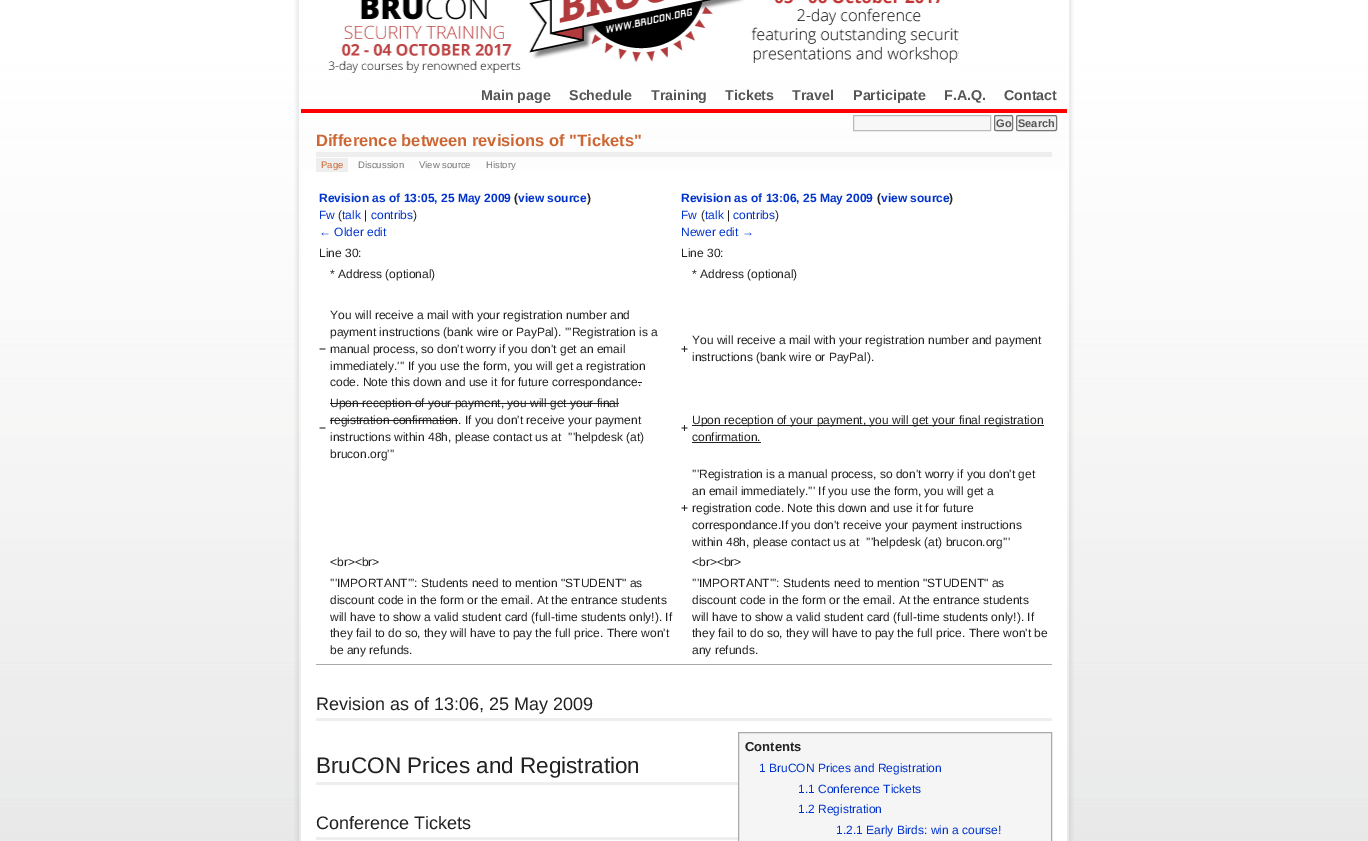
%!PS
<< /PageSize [1368 841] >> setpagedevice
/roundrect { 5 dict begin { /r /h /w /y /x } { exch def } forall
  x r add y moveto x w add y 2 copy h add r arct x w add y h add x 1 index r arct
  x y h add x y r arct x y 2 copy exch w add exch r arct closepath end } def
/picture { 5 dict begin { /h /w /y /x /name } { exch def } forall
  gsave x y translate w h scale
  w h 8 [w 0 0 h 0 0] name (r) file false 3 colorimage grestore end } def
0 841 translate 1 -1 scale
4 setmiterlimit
1 setgray
0 0 1368 841 rectfill
(img1.rgb) 0 0 1368 841 picture
(img2.rgb) 294 0 5 841 picture
(img3.rgb) 1069 0 5 841 picture
301 169 766 672 rectfill
/LiberationSans-Bold [14.25 0 0 -14.25 0 0] selectfont
0.333 setgray
481 100 moveto (Main page) show
569 100 moveto (Schedule) show
651 100 moveto (Training) show
725 100 moveto (Tickets) show
792 100 moveto (Travel) show
853 100 moveto (Participate) show
944 100 moveto (F.A.Q.) show
1004 100 moveto (Contact) show
1 0 0 setrgbcolor
301 109 766 4 rectfill
(img4.rgb) 328 0 631 73 picture
0.969 setgray
newpath 853.5 115.5 moveto 990.5 115.5 lineto 990.5 130.5 lineto 853.5 130.5 lineto closepath gsave fill grestore
0.733 setgray
stroke
0.937 setgray
994.5 115.5 18 15 1.5 roundrect gsave fill grestore
0.463 setgray
stroke
/LiberationSans-Bold [11 0 0 -11 0 0] selectfont
0.333 setgray
996 127 moveto (Go) show
0.937 setgray
1016.5 115.5 40 15 1.5 roundrect gsave fill grestore
0.463 setgray
stroke
0.333 setgray
1018 127 moveto (Search) show
/LiberationSans-Bold [16.5 0 0 -16.5 0 0] selectfont
0.8 0.4 0.2 setrgbcolor
316 146 moveto (Difference between revisions of "Tickets") show
0.933 setgray
316 152 736 5 rectfill
316 158 32 14 rectfill
/LiberationSans-Regular [9.5 0 0 -9.5 0 0] selectfont
0.8 0.4 0.2 setrgbcolor
321 168 moveto (Page) show
0.467 setgray
358 168 moveto (Discussion) show
419 168 moveto (View source) show
486 168 moveto (History) show
/LiberationSans-Bold [12 0 0 -12 0 0] selectfont
0 0.2 0.8 setrgbcolor
319 202 moveto (Revision as of 13:05, 25 May 2009) show
0.133 setgray
514 202 moveto (\() show
0 0.2 0.8 setrgbcolor
518 202 moveto (view source) show
0.133 setgray
587 202 moveto (\)) show
/LiberationSans-Regular [12 0 0 -12 0 0] selectfont
0 0.2 0.8 setrgbcolor
319 219 moveto (Fw) show
0.133 setgray
338 219 moveto (\() show
0 0.2 0.8 setrgbcolor
342 219 moveto (talk) show
0.133 setgray
364 219 moveto (|) show
0 0.2 0.8 setrgbcolor
371 219 moveto (contribs) show
0.133 setgray
413 219 moveto (\)) show
0 0.2 0.8 setrgbcolor
319 236 moveto (← Older edit) show
/LiberationSans-Bold [12 0 0 -12 0 0] selectfont
681 202 moveto (Revision as of 13:06, 25 May 2009) show
0.133 setgray
877 202 moveto (\() show
0 0.2 0.8 setrgbcolor
881 202 moveto (view source) show
0.133 setgray
949 202 moveto (\)) show
/LiberationSans-Regular [12 0 0 -12 0 0] selectfont
0 0.2 0.8 setrgbcolor
681 219 moveto (Fw) show
0.133 setgray
701 219 moveto (\() show
0 0.2 0.8 setrgbcolor
705 219 moveto (talk) show
0.133 setgray
727 219 moveto (|) show
0 0.2 0.8 setrgbcolor
733 219 moveto (contribs) show
0.133 setgray
775 219 moveto (\)) show
0 0.2 0.8 setrgbcolor
681 236 moveto (Newer edit →) show
0.133 setgray
319 257 moveto (Line 30:) show
681 257 moveto (Line 30:) show
330 278 moveto (* Address \(optional\)) show
692 278 moveto (* Address \(optional\)) show
319 353 moveto (−) show
330 319 moveto (You will receive a mail with your registration number and) show
330 336 moveto (payment instructions \(bank wire or PayPal\). '''Registration is a) show
330 353 moveto (manual process, so don't worry if you don't get an email) show
330 370 moveto (immediately.''' If you use the form, you will get a registration) show
330 386 moveto (code. Note this down and use it for future correspondance.) show
638 382 4 1 rectfill
681 353 moveto (+) show
692 344 moveto (You will receive a mail with your registration number and payment) show
692 361 moveto (instructions \(bank wire or PayPal\).) show
319 432 moveto (−) show
330 407 moveto (Upon reception of your payment, you will get your final) show
330 403 289 1 rectfill
330 424 moveto (registration confirmation. If you don't receive your payment) show
330 420 128 1 rectfill
330 441 moveto (instructions within 48h, please contact us at  '''helpdesk \(at\)) show
330 458 moveto (brucon.org''') show
681 432 moveto (+) show
692 425 352 1 rectfill
692 424 moveto (Upon reception of your payment, you will get your final registration) show
692 441 moveto (confirmation.) show
692 442 69 1 rectfill
681 512 moveto (+) show
692 478 moveto ('''Registration is a manual process, so don't worry if you don't get) show
692 495 moveto (an email immediately.''' If you use the form, you will get a) show
692 512 moveto (registration code. Note this down and use it for future) show
692 529 moveto (correspondance.If you don't receive your payment instructions) show
692 546 moveto (within 48h, please contact us at  '''helpdesk \(at\) brucon.org''') show
330 566 moveto (<br><br>) show
692 566 moveto (<br><br>) show
330 587 moveto ('''IMPORTANT''': Students need to mention "STUDENT" as) show
330 604 moveto (discount code in the form or the email. At the entrance students) show
330 621 moveto (will have to show a valid student card \(full-time students only!\). If) show
330 637 moveto (they fail to do so, they will have to pay the full price. There won't) show
330 654 moveto (be any refunds.) show
692 587 moveto ('''IMPORTANT''': Students need to mention "STUDENT" as) show
692 604 moveto (discount code in the form or the email. At the entrance students) show
692 621 moveto (will have to show a valid student card \(full-time students only!\). If) show
692 637 moveto (they fail to do so, they will have to pay the full price. There won't be) show
692 654 moveto (any refunds.) show
0.667 setgray
316 664 736 1 rectfill
0.933 setgray
316 718 736 3 rectfill
/LiberationSans-Regular [18 0 0 -18 0 0] selectfont
0.133 setgray
316 710 moveto (Revision as of 13:06, 25 May 2009) show
0.933 setgray
316 782 422 3 rectfill
/LiberationSans-Regular [22.5 0 0 -22.5 0 0] selectfont
0.133 setgray
316 773 moveto (BruCON Prices and Registration) show
0.961 setgray
newpath 738.5 732.5 moveto 1051.5 732.5 lineto 1051.5 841.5 lineto 738.5 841.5 lineto closepath gsave fill grestore
0.667 setgray
stroke
/LiberationSans-Bold [13 0 0 -13 0 0] selectfont
0.133 setgray
745 751 moveto (Contents) show
/LiberationSans-Regular [12 0 0 -12 0 0] selectfont
0 0.2 0.8 setrgbcolor
759 772 moveto (1 BruCON Prices and Registration) show
798 793 moveto (1.1 Conference Tickets) show
798 813 moveto (1.2 Registration) show
836 834 moveto (1.2.1 Early Birds: win a course!) show
0.933 setgray
316 837 422 3 rectfill
/LiberationSans-Regular [18 0 0 -18 0 0] selectfont
0.133 setgray
316 829 moveto (Conference Tickets) show
showpage
